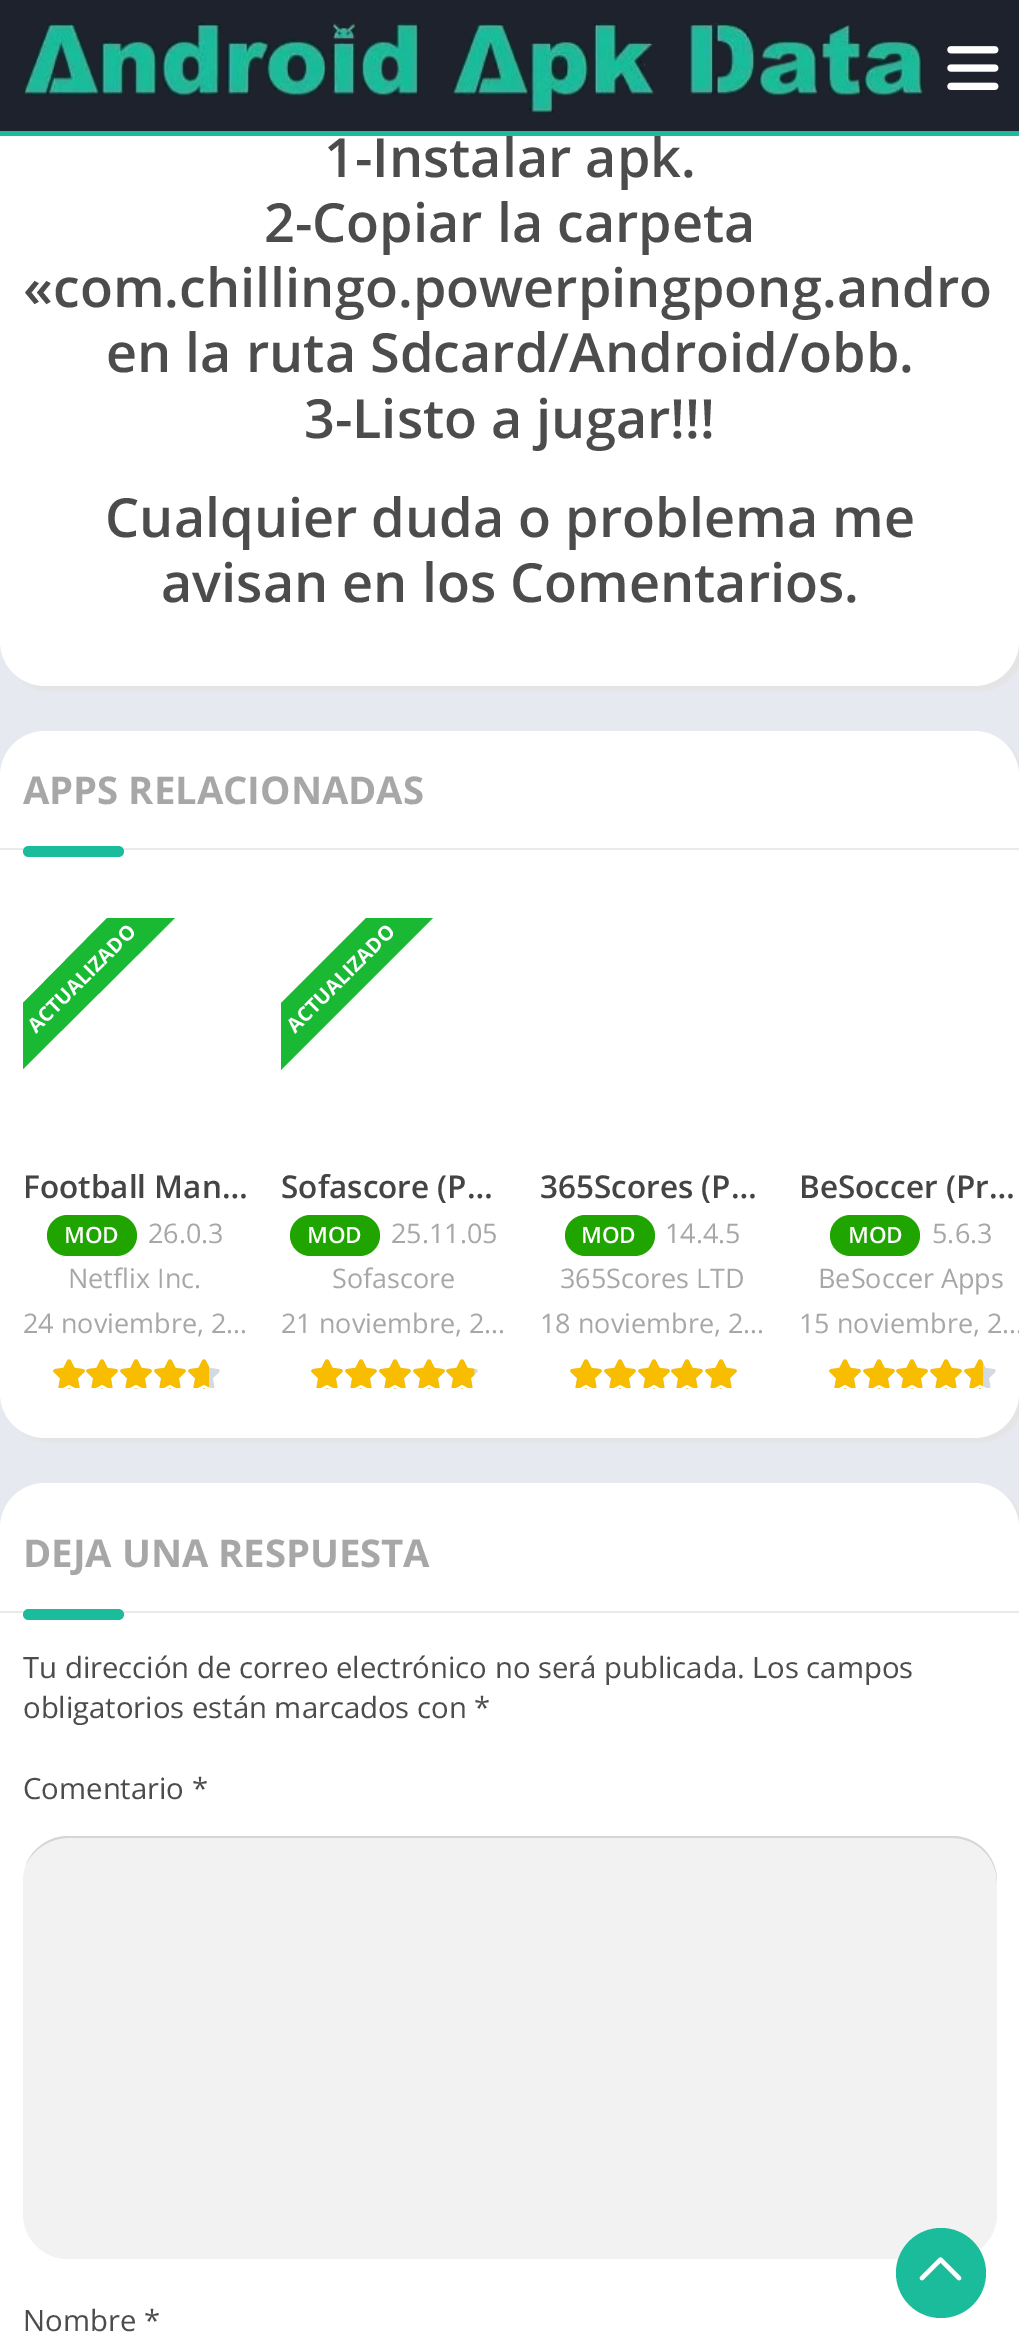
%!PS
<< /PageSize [1019 2350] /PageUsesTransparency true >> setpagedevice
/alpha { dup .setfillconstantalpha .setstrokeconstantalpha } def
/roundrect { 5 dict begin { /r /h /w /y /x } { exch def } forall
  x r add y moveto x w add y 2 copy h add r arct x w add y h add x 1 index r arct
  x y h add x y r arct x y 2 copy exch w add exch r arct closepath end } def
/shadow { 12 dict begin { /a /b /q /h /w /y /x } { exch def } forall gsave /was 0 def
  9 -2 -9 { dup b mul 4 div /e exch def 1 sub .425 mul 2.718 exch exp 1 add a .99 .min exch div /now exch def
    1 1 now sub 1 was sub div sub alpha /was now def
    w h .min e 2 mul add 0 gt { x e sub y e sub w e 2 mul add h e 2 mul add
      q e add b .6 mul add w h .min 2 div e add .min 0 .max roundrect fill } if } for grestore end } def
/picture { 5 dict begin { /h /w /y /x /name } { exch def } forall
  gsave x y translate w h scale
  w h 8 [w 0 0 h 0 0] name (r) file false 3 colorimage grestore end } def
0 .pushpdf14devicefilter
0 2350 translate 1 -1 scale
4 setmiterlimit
0.902 0.914 0.937 setrgbcolor
0 0 1019 2350 rectfill
0.89 setgray
5 -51 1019 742 45 2 1 shadow
1 setgray
0 -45 1019 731 45 roundrect fill
0.114 0.133 0.176 setrgbcolor
0 0 1019 131 rectfill
0.106 0.737 0.608 setrgbcolor
0 131 1019 5 rectfill
(img1.rgb) 23 23 901 90 picture
(img2.rgb) 947 46 52 44 picture
/OpenSans-SemiBold [54 0 0 -54 0 0] selectfont
0.298 setgray
324 177 moveto (1-Instalar apk.) show
264 242 moveto (2-Copiar la carpeta) show
23 307 moveto («com.chillingo.powerpingpong.andro) show
106 372 moveto (en la ruta Sdcard/Android/obb.) show
304 438 moveto (3-Listo a jugar!!!) show
105 537 moveto (Cualquier duda o problema me) show
161 602 moveto (avisan en los Comentarios.) show
0.89 setgray
5 736 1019 706 45 2 1 shadow
1 setgray
0 731 1019 707 45 roundrect fill
/OpenSans-Bold [38.25 0 0 -38.25 0 0] selectfont
0.655 setgray
23 804 moveto (APPS RELACIONADAS) show
0.918 setgray
0 848 1019 2 rectfill
0.106 0.737 0.608 setrgbcolor
23 846 101 11 5.5 roundrect fill
0.098 0.725 0.204 setrgbcolor
newpath 175 918 moveto 23 1069 lineto 23 1003 lineto 107 918 lineto closepath fill
/OpenSans-Bold [20.25 0 0 -20.25 0 0] selectfont
1 setgray
gsave 36 1034 translate -45 rotate 0 0 moveto (ACTUALIZADO) show grestore
/OpenSans-SemiBold [31.5 0 0 -31.5 0 0] selectfont
0.267 setgray
23 1198 moveto (Football Man…) show
0.125 0.643 0 setrgbcolor
47 1215 90 41 20.5 roundrect fill
/OpenSans-SemiBold [22.5 0 0 -22.5 0 0] selectfont
1 setgray
64 1243 moveto (MOD) show
/OpenSans-Regular [27 0 0 -27 0 0] selectfont
0.655 setgray
148 1243 moveto (26.0.3) show
68 1288 moveto (Netflix Inc.) show
23 1333 moveto (24 noviembre, 2…) show
(img3.rgb) 53 1359 167 30 picture
(img4.rgb) 53 1359 156 30 picture
0.098 0.725 0.204 setrgbcolor
newpath 433 918 moveto 281 1070 lineto 281 1003 lineto 366 918 lineto closepath fill
/OpenSans-Bold [20.25 0 0 -20.25 0 0] selectfont
1 setgray
gsave 295 1034 translate -45 rotate 0 0 moveto (ACTUALIZADO) show grestore
/OpenSans-SemiBold [31.5 0 0 -31.5 0 0] selectfont
0.267 setgray
281 1198 moveto (Sofascore \(P…) show
0.125 0.643 0 setrgbcolor
290 1215 90 41 20.5 roundrect fill
/OpenSans-SemiBold [22.5 0 0 -22.5 0 0] selectfont
1 setgray
307 1243 moveto (MOD) show
/OpenSans-Regular [27 0 0 -27 0 0] selectfont
0.655 setgray
391 1243 moveto (25.11.05) show
332 1288 moveto (Sofascore) show
281 1333 moveto (21 noviembre, 2…) show
(img5.rgb) 311 1359 167 30 picture
(img6.rgb) 311 1359 164 30 picture
/OpenSans-SemiBold [31.5 0 0 -31.5 0 0] selectfont
0.267 setgray
540 1198 moveto (365Scores \(P…) show
0.125 0.643 0 setrgbcolor
565 1215 90 41 20.5 roundrect fill
/OpenSans-SemiBold [22.5 0 0 -22.5 0 0] selectfont
1 setgray
581 1243 moveto (MOD) show
/OpenSans-Regular [27 0 0 -27 0 0] selectfont
0.655 setgray
665 1243 moveto (14.4.5) show
560 1288 moveto (365Scores LTD) show
540 1333 moveto (18 noviembre, 2…) show
(img7.rgb) 570 1359 167 30 picture
(img8.rgb) 570 1359 167 30 picture
/OpenSans-SemiBold [31.5 0 0 -31.5 0 0] selectfont
0.267 setgray
799 1198 moveto (BeSoccer \(Pr…) show
0.125 0.643 0 setrgbcolor
830 1215 90 41 20.5 roundrect fill
/OpenSans-SemiBold [22.5 0 0 -22.5 0 0] selectfont
1 setgray
848 1243 moveto (MOD) show
/OpenSans-Regular [27 0 0 -27 0 0] selectfont
0.655 setgray
932 1243 moveto (5.6.3) show
818 1288 moveto (BeSoccer Apps) show
799 1333 moveto (15 noviembre, 2…) show
(img9.rgb) 829 1359 167 30 picture
(img10.rgb) 829 1359 154 30 picture
0.89 setgray
5 1487 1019 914 45 2 1 shadow
1 setgray
0 1483 1019 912 45 roundrect fill
/OpenSans-Bold [38.25 0 0 -38.25 0 0] selectfont
0.655 setgray
23 1567 moveto (DEJA UNA RESPUESTA) show
0.918 setgray
0 1611 1019 2 rectfill
0.106 0.737 0.608 setrgbcolor
23 1609 101 11 5.5 roundrect fill
/OpenSans-Regular [29.25 0 0 -29.25 0 0] selectfont
0.298 setgray
23 1678 moveto (Tu dirección de correo electrónico no será publicada. Los campos) show
23 1718 moveto (obligatorios están marcados con *) show
23 1799 moveto (Comentario *) show
0.949 setgray
23 1836 974 423 45 roundrect fill
0.12 alpha
0 setgray
newpath 68 1838 moveto 952 1838 lineto 977 1838 997 1858 997 1883 curveto 997 1881 lineto 997 1856 977 1836 952 1836 curveto 68 1836 lineto 49 1836 33 1848 26 1864 curveto 34 1849 50 1838 68 1838 curveto closepath fill
1 alpha
0.298 setgray
23 2331 moveto (Nombre *) show
0.106 0.737 0.608 setrgbcolor
newpath 941 2273 45 0 360 arc closepath fill
(img11.rgb) 919 2257 43 24 picture
.poppdf14devicefilter showpage
